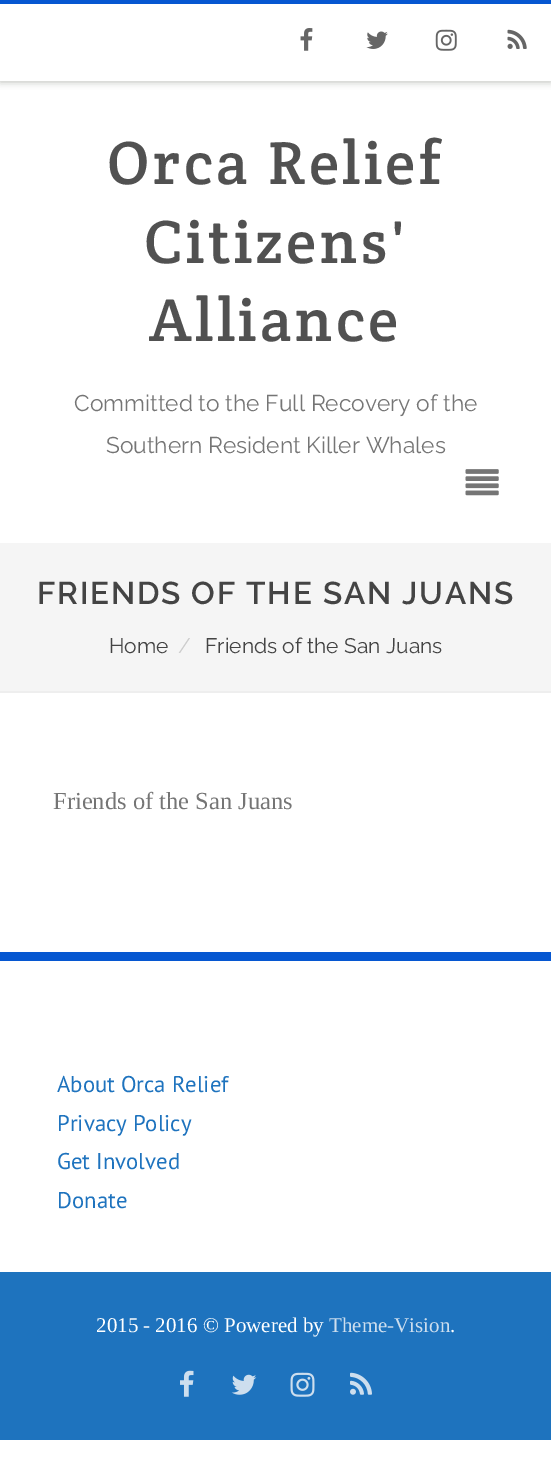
%!PS
<< /PageSize [551 1464] /PageUsesTransparency true >> setpagedevice
/alpha { dup .setfillconstantalpha .setstrokeconstantalpha } def
/roundrect { 5 dict begin { /r /h /w /y /x } { exch def } forall
  x r add y moveto x w add y 2 copy h add r arct x w add y h add x 1 index r arct
  x y h add x y r arct x y 2 copy exch w add exch r arct closepath end } def
/shadow { 12 dict begin { /a /b /q /h /w /y /x } { exch def } forall gsave /was 0 def
  9 -2 -9 { dup b mul 4 div /e exch def 1 sub .425 mul 2.718 exch exp 1 add a .99 .min exch div /now exch def
    1 1 now sub 1 was sub div sub alpha /was now def
    w h .min e 2 mul add 0 gt { x e sub y e sub w e 2 mul add h e 2 mul add
      q e add b .6 mul add w h .min 2 div e add .min 0 .max roundrect fill } if } for grestore end } def
/picture { 5 dict begin { /h /w /y /x /name } { exch def } forall
  gsave x y translate w h scale
  w h 8 [w 0 0 h 0 0] name (r) file false 3 colorimage grestore end } def
0 .pushpdf14devicefilter
0 1464 translate 1 -1 scale
4 setmiterlimit
1 setgray
0 0 551 1464 rectfill
gsave
newpath 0 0 moveto 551 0 lineto 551 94 lineto 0 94 lineto closepath 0 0 moveto 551 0 lineto 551 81 lineto 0 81 lineto closepath eoclip newpath
0.655 0.663 0.643 setrgbcolor
0 2 551 80 0 3.5 0.75 shadow
grestore
0.024 0.341 0.82 setrgbcolor
0 0 551 4 rectfill
(img1.rgb) 300 28 13 23 picture
(img2.rgb) 366 31 22 18 picture
(img3.rgb) 435 29 22 22 picture
(img4.rgb) 507 29 20 20 picture
/CreteRound-Regular [61.25 0 0 -61.25 0 0] selectfont
0.318 setgray
107 184 moveto 3.5 0 (Orca Relief) ashow
144 263 moveto 3.5 0 (Citizens') ashow
149 341 moveto 3.5 0 (Alliance) ashow
/Raleway-Regular [22.75 0 0 -22.75 0 0] selectfont
0.459 setgray
74 411 moveto (Committed to the Full Recovery of the) show
106 453 moveto (Southern Resident Killer Whales) show
(img5.rgb) 465 469 34 27 picture
0.961 setgray
0 543 551 148 rectfill
0.933 setgray
0 691 551 2 rectfill
/Raleway-SemiBold [31.5 0 0 -31.5 0 0] selectfont
0.267 setgray
37 604 moveto 1.75 0 (FRIENDS OF THE SAN JUANS) ashow
/Raleway-Regular [21 0 0 -21 0 0] selectfont
109 653 moveto (Home) show
0.8 setgray
178 653 moveto (/) show
0.267 setgray
205 653 moveto (Friends of the San Juans) show
/LiberationSerif-Regular [24.5 0 0 -24.5 0 0] selectfont
0.459 setgray
53 809 moveto (Friends of the San Juans) show
0.024 0.341 0.82 setrgbcolor
0 952 551 9 rectfill
/PTSans-Regular [22.75 0 0 -22.75 0 0] selectfont
0.118 0.451 0.745 setrgbcolor
57 1092 moveto (About Orca Relief) show
57 1131 moveto (Privacy Policy) show
57 1169 moveto (Get Involved) show
57 1208 moveto (Donate) show
0 1272 551 168 rectfill
/LiberationSerif-Regular [21 0 0 -21 0 0] selectfont
1 setgray
96 1332 moveto (2015 - 2016 © Powered by) show
0.804 0.871 0.933 setrgbcolor
329 1332 moveto (Theme-Vision) show
1 setgray
450 1332 moveto (.) show
(img6.rgb) 180 1370 14 27 picture
(img7.rgb) 231 1374 26 21 picture
(img8.rgb) 290 1372 25 25 picture
(img9.rgb) 350 1372 22 23 picture
.poppdf14devicefilter showpage
